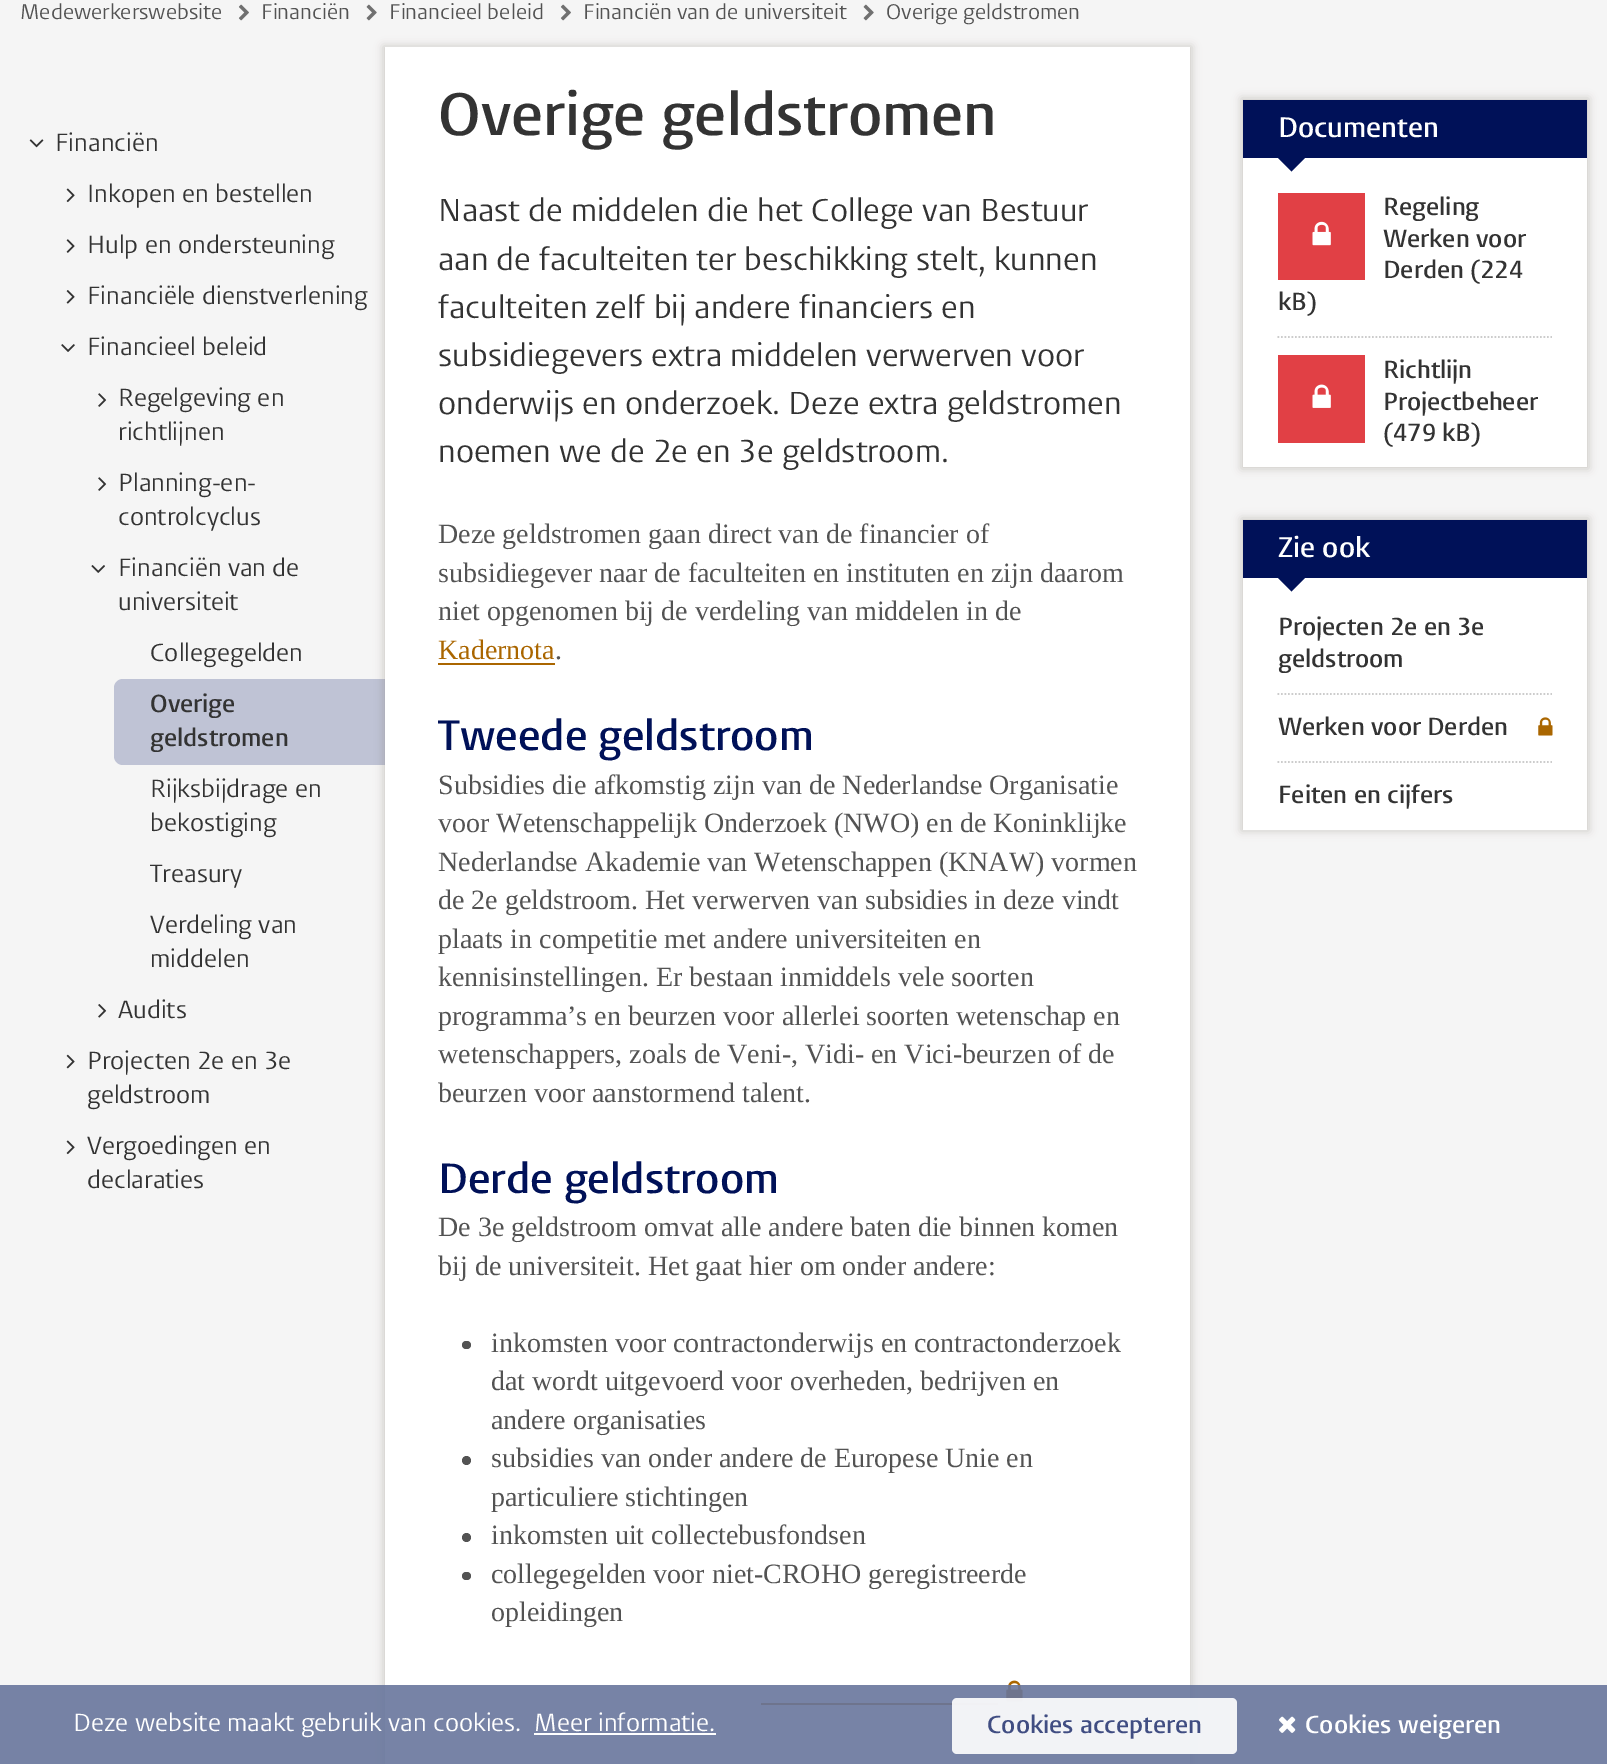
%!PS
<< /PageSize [1607 1764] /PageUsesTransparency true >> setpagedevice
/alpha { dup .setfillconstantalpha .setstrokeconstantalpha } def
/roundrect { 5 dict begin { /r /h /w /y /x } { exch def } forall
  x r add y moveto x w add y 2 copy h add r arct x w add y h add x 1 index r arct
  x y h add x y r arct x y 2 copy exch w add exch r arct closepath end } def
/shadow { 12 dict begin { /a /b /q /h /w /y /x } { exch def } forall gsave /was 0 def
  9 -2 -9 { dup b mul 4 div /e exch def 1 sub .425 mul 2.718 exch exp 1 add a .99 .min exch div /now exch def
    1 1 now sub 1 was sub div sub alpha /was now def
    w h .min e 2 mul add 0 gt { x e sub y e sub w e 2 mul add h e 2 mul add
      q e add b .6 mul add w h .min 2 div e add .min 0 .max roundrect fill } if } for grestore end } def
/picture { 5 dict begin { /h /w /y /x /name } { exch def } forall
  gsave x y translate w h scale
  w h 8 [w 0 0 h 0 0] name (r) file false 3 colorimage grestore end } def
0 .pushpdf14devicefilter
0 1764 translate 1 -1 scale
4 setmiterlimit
0.961 setgray
0 0 1607 1764 rectfill
/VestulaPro-Regular [21 0 0 -21 0 0] selectfont
0.325 setgray
20 19 moveto (Medewerkerswebsite) show
(img1.rgb) 238 4 11 17 picture
261 19 moveto (Financiën) show
(img2.rgb) 366 4 11 17 picture
389 19 moveto (Financieel beleid) show
(img1.rgb) 560 4 11 17 picture
583 19 moveto (Financiën van de universiteit) show
(img2.rgb) 863 4 11 17 picture
886 19 moveto (Overige geldstromen) show
(img3.rgb) 29 139 15 9 picture
/VestulaPro-Regular [24.5 0 0 -24.5 0 0] selectfont
0.2 setgray
55 151 moveto (Financiën) show
(img4.rgb) 66 188 9 15 picture
87 202 moveto (Inkopen en bestellen) show
(img5.rgb) 66 239 9 14 picture
87 253 moveto (Hulp en ondersteuning) show
(img6.rgb) 66 290 9 14 picture
87 304 moveto (Financiële dienstverlening) show
(img7.rgb) 61 344 14 8 picture
87 355 moveto (Financieel beleid) show
(img8.rgb) 98 393 9 14 picture
118 406 moveto (Regelgeving en) show
118 440 moveto (richtlijnen) show
(img8.rgb) 98 477 9 14 picture
118 491 moveto (Planning-en-) show
118 525 moveto (controlcyclus) show
(img9.rgb) 91 565 14 8 picture
118 576 moveto (Financiën van de) show
118 610 moveto (universiteit) show
150 661 moveto (Collegegelden) show
0.749 0.765 0.835 setrgbcolor
newpath 123 679 moveto 385 679 lineto 385 765 lineto 123 765 lineto 118 765 114 761 114 756 curveto 114 688 lineto 114 683 118 679 123 679 curveto closepath fill
/VestulaPro-SemiBold [24.5 0 0 -24.5 0 0] selectfont
0.2 setgray
150 712 moveto (Overige) show
150 746 moveto (geldstromen) show
/VestulaPro-Regular [24.5 0 0 -24.5 0 0] selectfont
150 797 moveto (Rijksbijdrage en) show
150 831 moveto (bekostiging) show
150 882 moveto (Treasury) show
150 933 moveto (Verdeling van) show
150 967 moveto (middelen) show
(img10.rgb) 98 1004 9 14 picture
118 1018 moveto (Audits) show
(img11.rgb) 66 1054 9 15 picture
87 1069 moveto (Projecten 2e en 3e) show
87 1103 moveto (geldstroom) show
(img4.rgb) 66 1140 9 15 picture
87 1154 moveto (Vergoedingen en) show
87 1188 moveto (declaraties) show
0.471 0.431 0.392 setrgbcolor
383 46 809 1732 0 4.5 0.3 shadow
1 setgray
385 47 805 1717 rectfill
/VestulaPro-SemiBold [59.5 0 0 -59.5 0 0] selectfont
0.2 setgray
438 135 moveto (Overige geldstromen) show
/VestulaPro-Regular [31.5 0 0 -31.5 0 0] selectfont
438 221 moveto (Naast de middelen die het College van Bestuur) show
438 270 moveto (aan de faculteiten ter beschikking stelt, kunnen) show
438 318 moveto (faculteiten zelf bij andere financiers en) show
438 366 moveto (subsidiegevers extra middelen verwerven voor) show
438 414 moveto (onderwijs en onderzoek. Deze extra geldstromen) show
438 462 moveto (noemen we de 2e en 3e geldstroom.) show
/LiberationSerif-Regular [28 0 0 -28 0 0] selectfont
0.325 setgray
438 543 moveto (Deze geldstromen gaan direct van de financier of) show
438 582 moveto (subsidiegever naar de faculteiten en instituten en zijn daarom) show
438 620 moveto (niet opgenomen bij de verdeling van middelen in de) show
0.667 0.4 0 setrgbcolor
438 659 moveto (Kadernota) show
438 663 117 2 rectfill
0.325 setgray
555 659 moveto (.) show
/VestulaPro-SemiBold [42 0 0 -42 0 0] selectfont
0 0.067 0.345 setrgbcolor
438 750 moveto (Tweede geldstroom) show
/LiberationSerif-Regular [28 0 0 -28 0 0] selectfont
0.325 setgray
438 794 moveto (Subsidies die afkomstig zijn van de Nederlandse Organisatie) show
438 832 moveto (voor Wetenschappelijk Onderzoek \(NWO\) en de Koninklijke) show
438 871 moveto (Nederlandse Akademie van Wetenschappen \(KNAW\) vormen) show
438 909 moveto (de 2e geldstroom. Het verwerven van subsidies in deze vindt) show
438 948 moveto (plaats in competitie met andere universiteiten en) show
438 986 moveto (kennisinstellingen. Er bestaan inmiddels vele soorten) show
438 1025 moveto (programma’s en beurzen voor allerlei soorten wetenschap en) show
438 1063 moveto (wetenschappers, zoals de Veni-, Vidi- en Vici-beurzen of de) show
438 1102 moveto (beurzen voor aanstormend talent.) show
/VestulaPro-SemiBold [42 0 0 -42 0 0] selectfont
0 0.067 0.345 setrgbcolor
438 1193 moveto (Derde geldstroom) show
/LiberationSerif-Regular [28 0 0 -28 0 0] selectfont
0.325 setgray
438 1236 moveto (De 3e geldstroom omvat alle andere baten die binnen komen) show
438 1275 moveto (bij de universiteit. Het gaat hier om onder andere:) show
462 1341 9 8 4 roundrect fill
491 1352 moveto (inkomsten voor contractonderwijs en contractonderzoek) show
491 1390 moveto (dat wordt uitgevoerd voor overheden, bedrijven en) show
491 1429 moveto (andere organisaties) show
newpath 466.5 1460.5 4.5 0 360 arc closepath fill
491 1467 moveto (subsidies van onder andere de Europese Unie en) show
491 1506 moveto (particuliere stichtingen) show
newpath 466.5 1537.5 4.5 0 360 arc closepath fill
491 1544 moveto (inkomsten uit collectebusfondsen) show
462 1572 9 8 4 roundrect fill
491 1583 moveto (collegegelden voor niet-CROHO geregistreerde) show
491 1621 moveto (opleidingen) show
(img12.rgb) 1006 1680 17 22 picture
0.667 0.4 0 setrgbcolor
761 1703 237 2 rectfill
0.471 0.431 0.392 setrgbcolor
1241 98 348 371 0 4.5 0.3 shadow
1 setgray
1243 158 344 309 rectfill
0 0.067 0.345 setrgbcolor
1243 100 344 58 rectfill
/VestulaPro-SemiBold [28 0 0 -28 0 0] selectfont
1 setgray
1278 137 moveto (Documenten) show
0 0.067 0.345 setrgbcolor
newpath 1277.5 157.5 moveto 1305.5 157.5 lineto 1291.5 171.5 lineto closepath fill
0.882 0.251 0.271 setrgbcolor
1278 193 87 87 rectfill
(img13.rgb) 1312 221 19 25 picture
/VestulaPro-SemiBold [24.5 0 0 -24.5 0 0] selectfont
0.2 setgray
1383 215 moveto (Regeling) show
1383 247 moveto (Werken voor) show
1383 278 moveto (Derden \(224) show
1278 310 moveto (kB\)) show
0.8 setgray
1.8 setlinewidth
[1.75 1.75] 0 setdash
newpath 1277.5 337 moveto 1552 337 lineto stroke
0.882 0.251 0.271 setrgbcolor
1278 355 87 88 rectfill
(img14.rgb) 1312 384 19 24 picture
0.2 setgray
1383 378 moveto (Richtlijn) show
1383 410 moveto (Projectbeheer) show
1383 441 moveto (\(479 kB\)) show
0.471 0.431 0.392 setrgbcolor
1241 518 348 313 0 4.5 0.3 shadow
1 setgray
1243 578 344 252 rectfill
0 0.067 0.345 setrgbcolor
1243 520 344 58 rectfill
/VestulaPro-SemiBold [28 0 0 -28 0 0] selectfont
1 setgray
1278 557 moveto (Zie ook) show
0 0.067 0.345 setrgbcolor
newpath 1277.5 577.5 moveto 1305.5 577.5 lineto 1291.5 591.5 lineto closepath fill
/VestulaPro-SemiBold [24.5 0 0 -24.5 0 0] selectfont
0.2 setgray
1278 635 moveto (Projecten 2e en 3e) show
1278 667 moveto (geldstroom) show
0.8 setgray
newpath 1277.5 694 moveto 1552 694 lineto stroke
0.2 setgray
1278 735 moveto (Werken voor Derden) show
(img15.rgb) 1538 717 15 19 picture
0.8 setgray
newpath 1277.5 762 moveto 1552 762 lineto stroke
0.2 setgray
1278 803 moveto (Feiten en cijfers) show
0.9 alpha
0.408 0.463 0.612 setrgbcolor
0 1685 1607 79 rectfill
/VestulaPro-Regular [24.5 0 0 -24.5 0 0] selectfont
1 alpha
1 setgray
73 1731 moveto (Deze website maakt gebruik van cookies.) show
534 1731 moveto (Meer informatie.) show
534 1733 182 2 rectfill
0.9 alpha
952 1698 285 56 5 roundrect fill
/VestulaPro-SemiBold [24.5 0 0 -24.5 0 0] selectfont
1 alpha
0.251 0.302 0.51 setrgbcolor
987 1733 moveto (Cookies accepteren) show
(img16.rgb) 1279 1716 17 17 picture
1 setgray
1305 1733 moveto (Cookies weigeren) show
.poppdf14devicefilter showpage
